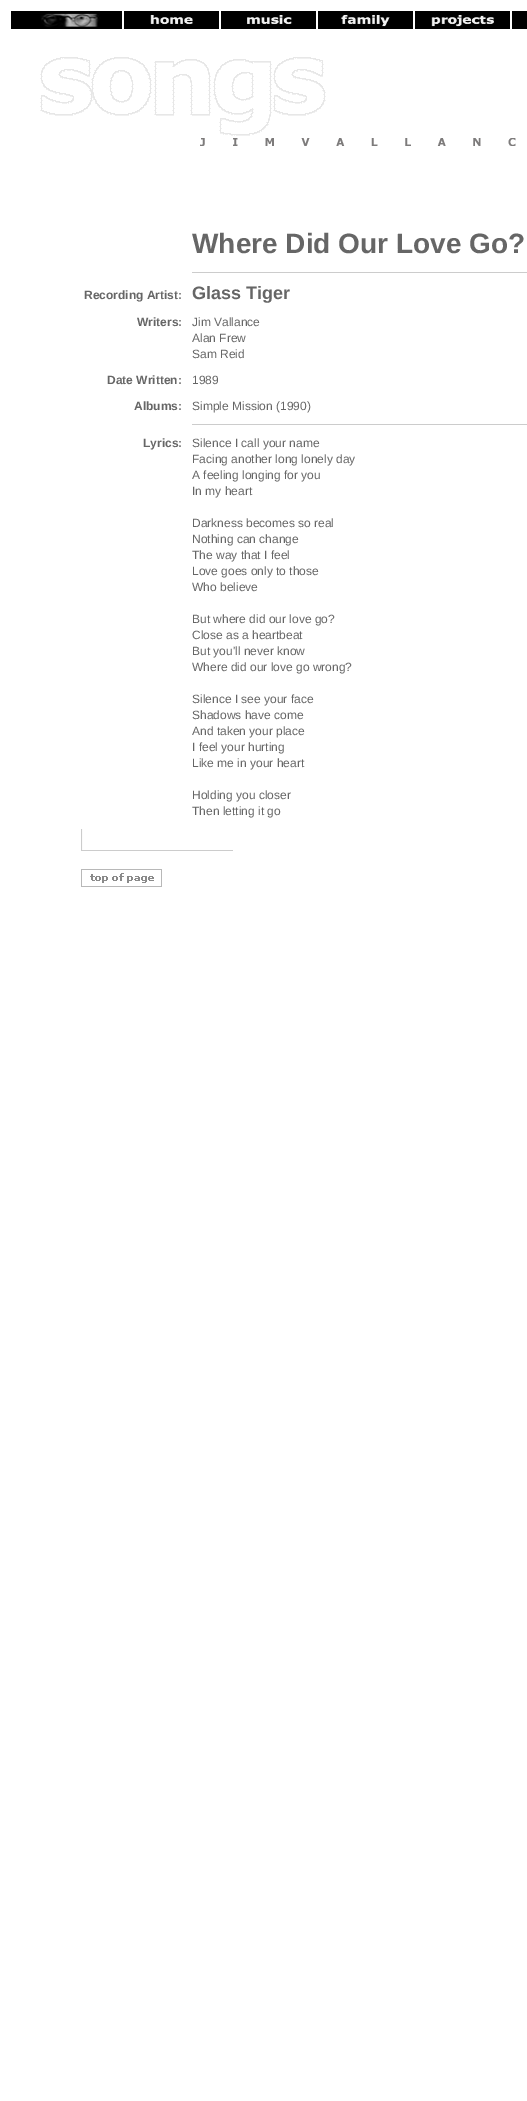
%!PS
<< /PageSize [527 2101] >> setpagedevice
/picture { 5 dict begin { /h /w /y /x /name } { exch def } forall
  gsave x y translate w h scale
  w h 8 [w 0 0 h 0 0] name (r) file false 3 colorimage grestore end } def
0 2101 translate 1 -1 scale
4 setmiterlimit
1 setgray
0 0 527 2101 rectfill
(img1.rgb) 40 57 286 79 picture
(img2.rgb) 11 11 111 18 picture
(img3.rgb) 124 11 95 18 picture
(img4.rgb) 221 11 95 18 picture
(img5.rgb) 318 11 95 18 picture
(img6.rgb) 415 11 95 18 picture
0 setgray
512 11 15 18 rectfill
(img7.rgb) 200 138 316 8 picture
/LiberationSans-Bold [28 0 0 -28 0 0] selectfont
0.4 setgray
192 253 moveto (Where Did Our Love Go?) show
0.8 setgray
192 272 335 1 rectfill
/LiberationSans-Bold [12 0 0 -12 0 0] selectfont
0.4 setgray
84 299 moveto (Recording Artist:) show
/LiberationSans-Bold [18 0 0 -18 0 0] selectfont
192 299 moveto (Glass Tiger) show
/LiberationSans-Bold [12 0 0 -12 0 0] selectfont
137 326 moveto (Writers:) show
/LiberationSans-Regular [12 0 0 -12 0 0] selectfont
192 326 moveto (Jim Vallance) show
192 342 moveto (Alan Frew) show
192 358 moveto (Sam Reid) show
/LiberationSans-Bold [12 0 0 -12 0 0] selectfont
107 384 moveto (Date Written:) show
/LiberationSans-Regular [12 0 0 -12 0 0] selectfont
192 384 moveto (1989) show
/LiberationSans-Bold [12 0 0 -12 0 0] selectfont
134 410 moveto (Albums:) show
/LiberationSans-Regular [12 0 0 -12 0 0] selectfont
192 410 moveto (Simple Mission \(1990\)) show
0.8 setgray
192 424 335 1 rectfill
/LiberationSans-Bold [12 0 0 -12 0 0] selectfont
0.4 setgray
143 447 moveto (Lyrics:) show
/LiberationSans-Regular [12 0 0 -12 0 0] selectfont
192 447 moveto (Silence I call your name) show
192 463 moveto (Facing another long lonely day) show
192 479 moveto (A feeling longing for you) show
192 495 moveto (In my heart) show
192 527 moveto (Darkness becomes so real) show
192 543 moveto (Nothing can change) show
192 559 moveto (The way that I feel) show
192 575 moveto (Love goes only to those) show
192 591 moveto (Who believe) show
192 623 moveto (But where did our love go?) show
192 639 moveto (Close as a heartbeat) show
192 655 moveto (But you'll never know) show
192 671 moveto (Where did our love go wrong?) show
192 703 moveto (Silence I see your face) show
192 719 moveto (Shadows have come) show
192 735 moveto (And taken your place) show
192 751 moveto (I feel your hurting) show
192 767 moveto (Like me in your heart) show
192 799 moveto (Holding you closer) show
192 815 moveto (Then letting it go) show
(img8.rgb) 81 829 152 22 picture
(img9.rgb) 81 869 81 18 picture
showpage
